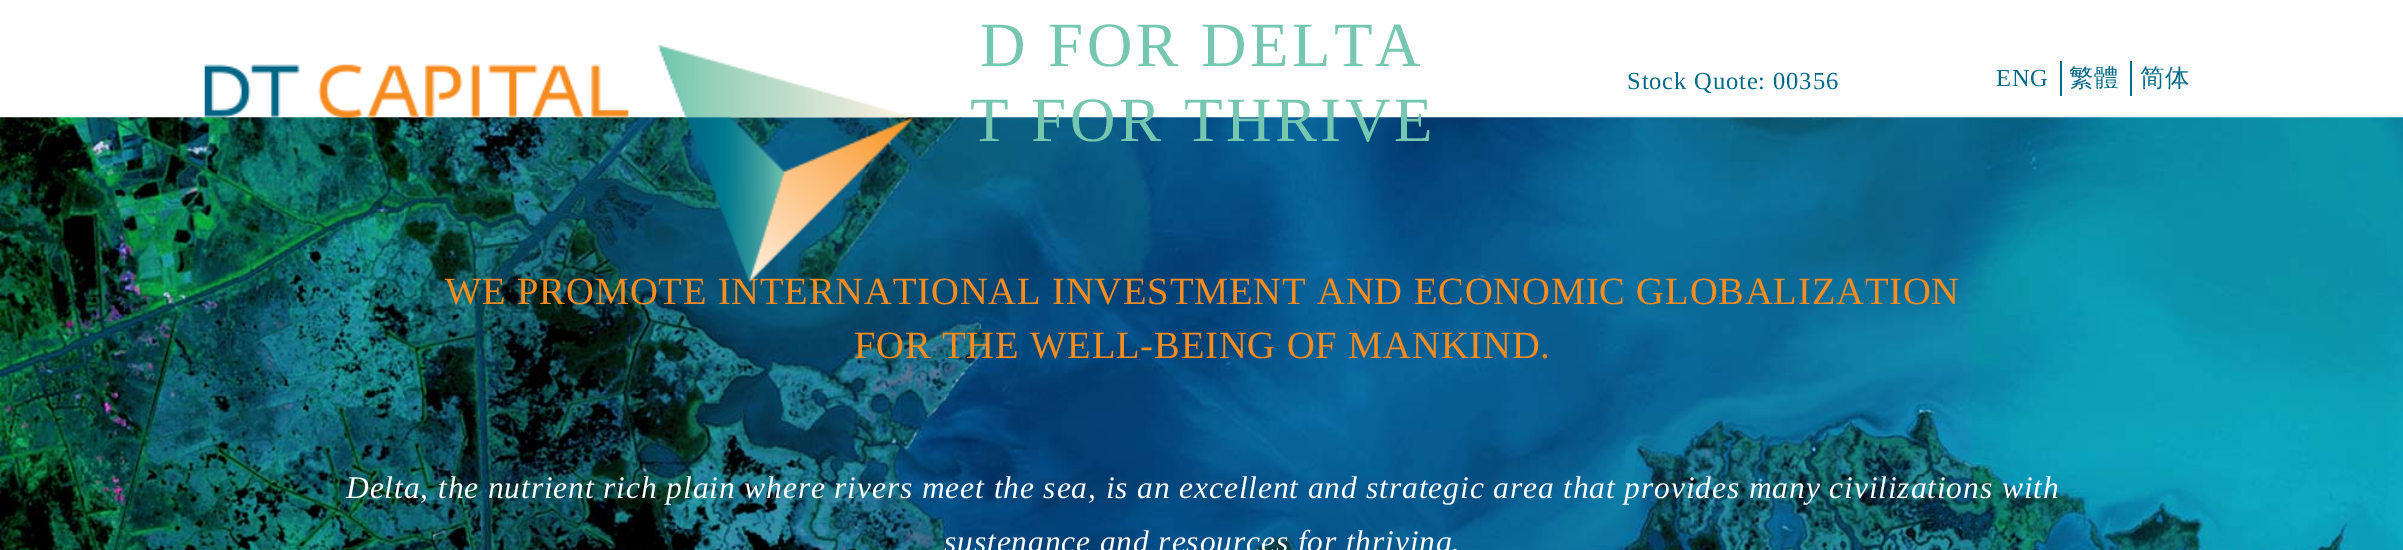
%!PS
<< /PageSize [2403 550] >> setpagedevice
/picture { 5 dict begin { /h /w /y /x /name } { exch def } forall
  gsave x y translate w h scale
  w h 8 [w 0 0 h 0 0] name (r) file false 3 colorimage grestore end } def
0 550 translate 1 -1 scale
4 setmiterlimit
1 setgray
0 0 2403 550 rectfill
(img1.rgb) 0 117 2403 433 picture
/LiberationSerif-Regular [63 0 0 -63 0 0] selectfont
0.459 0.784 0.686 setrgbcolor
980 66 moveto 3.5 0 (D FOR DELTA) ashow
970 141 moveto 3.5 0 (T FOR THRIVE) ashow
/LiberationSerif-Regular [38.5 0 0 -38.5 0 0] selectfont
0.965 0.545 0.122 setrgbcolor
445 304 moveto 0.88 0 (WE PROMOTE INTERNATIONAL INVESTMENT AND ECONOMIC GLOBALIZATION) ashow
854 358 moveto 0.88 0 (FOR THE WELL-BEING OF MANKIND.) ashow
/LiberationSerif-Italic [31.5 0 0 -31.5 0 0] selectfont
1 setgray
346 498 moveto 0.88 0 (Delta, the nutrient rich plain where rivers meet the sea, is an excellent and strategic area that provides many civilizations with) ashow
944 552 moveto 0.88 0 (sustenance and resources for thriving.) ashow
(img2.rgb) 204 45 710 237 picture
/LiberationSerif-Regular [24.5 0 0 -24.5 0 0] selectfont
0 0.42 0.529 setrgbcolor
1627 89 moveto 0.88 0 (Stock Quote: 00356) ashow
1996 86 moveto 0.88 0 (ENG) ashow
2060 61 2 35 rectfill
/WenQuanYiZenHei-Medium [24.5 0 0 -24.5 0 0] selectfont
2069 86 moveto 0.88 0 (繁體) ashow
2130 61 2 35 rectfill
2140 86 moveto 0.88 0 (简体) ashow
showpage
